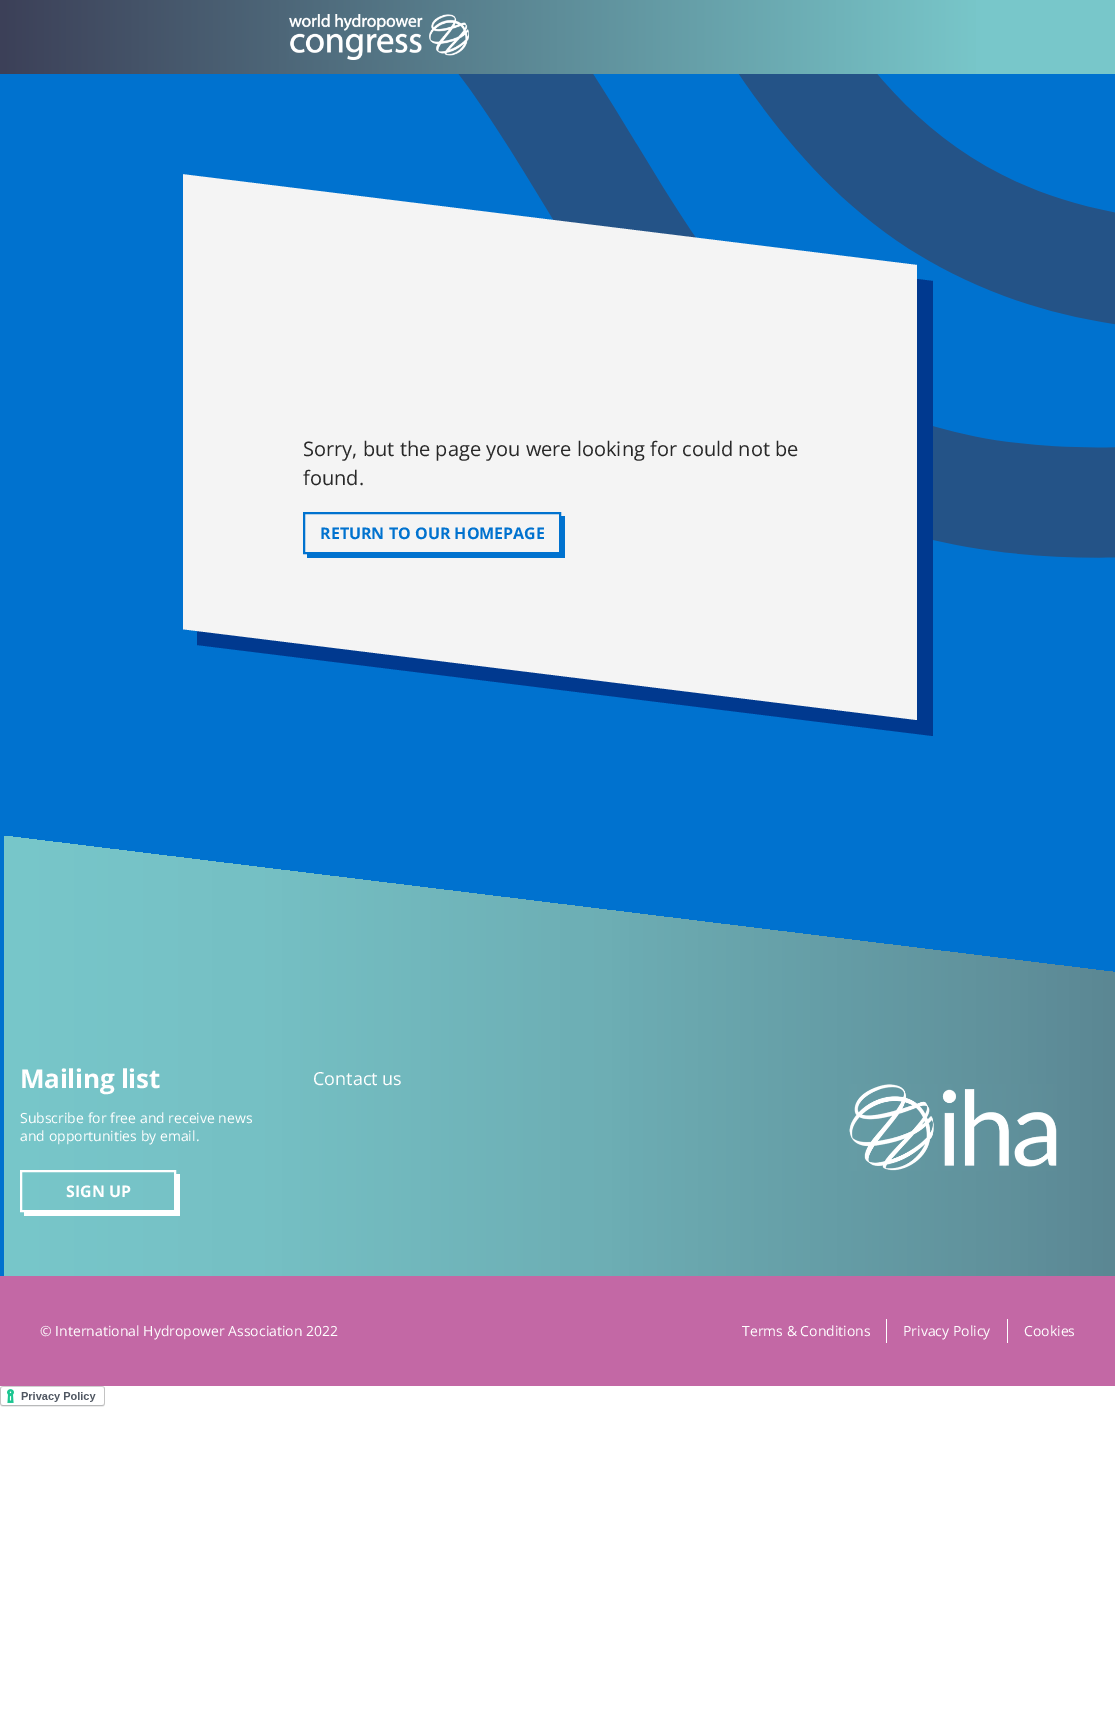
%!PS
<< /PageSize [1115 1724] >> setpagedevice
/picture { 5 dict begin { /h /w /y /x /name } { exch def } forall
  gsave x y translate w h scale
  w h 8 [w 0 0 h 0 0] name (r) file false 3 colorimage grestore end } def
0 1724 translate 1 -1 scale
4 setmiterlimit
1 setgray
0 0 1115 1724 rectfill
0 0.447 0.812 setrgbcolor
0 74 1115 1202 rectfill
(img1.rgb) 458 74 657 484 picture
gsave newpath 0 0 moveto 1115 0 lineto 1115 74 lineto 0 74 lineto closepath clip newpath
<< /ShadingType 2 /ColorSpace /DeviceRGB /Coords [0 37 1115 37] /Extend [true true] /Function << /FunctionType 3 /Domain [0 1] /Functions [<< /FunctionType 2 /Domain [0 1] /C0 [0.235 0.251 0.345] /C1 [0.471 0.78 0.792] /N 1 >> << /FunctionType 2 /Domain [0 1] /C0 [0.471 0.78 0.792] /C1 [0.471 0.78 0.792] /N 1 >>] /Bounds [0.88] /Encode [0 1 0 1] >> >> shfill grestore
(img2.rgb) 289 14 180 46 picture
0 0.224 0.561 setrgbcolor
newpath 197 190 moveto 933 281 lineto 933 736 lineto 197 645 lineto closepath fill
gsave
183 174 750 562 rectclip
0.957 setgray
newpath 181 174 moveto 917 265 lineto 917 720 lineto 181 629 lineto closepath fill
grestore
/OpenSans-Regular [20 0 0 -20 0 0] selectfont
0.157 setgray
303 456 moveto (Sorry, but the page you were looking for could not be) show
303 485 moveto (found.) show
0 0.447 0.812 setrgbcolor
newpath 307 554 moveto 307 558 lineto 565 558 lineto 565 516 lineto 561 516 lineto 561 554 lineto closepath fill
2 setlinewidth
304 513 256 40 rectstroke
/OpenSans-Bold [16 0 0 -16 0 0] selectfont
320 539 moveto (RETURN TO OUR HOMEPAGE) show
gsave newpath 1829 1060 moveto 4 836 lineto 4 1385 lineto 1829 1385 lineto closepath clip newpath
<< /ShadingType 2 /ColorSpace /DeviceRGB /Coords [4.2 1111 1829 1111] /Extend [true true] /Function << /FunctionType 3 /Domain [0 1] /Functions [<< /FunctionType 2 /Domain [0 1] /C0 [0.471 0.78 0.792] /C1 [0.459 0.753 0.769] /N 1 >> << /FunctionType 2 /Domain [0 1] /C0 [0.459 0.753 0.769] /C1 [0.427 0.682 0.706] /N 1 >> << /FunctionType 2 /Domain [0 1] /C0 [0.427 0.682 0.706] /C1 [0.373 0.561 0.604] /N 1 >> << /FunctionType 2 /Domain [0 1] /C0 [0.373 0.561 0.604] /C1 [0.298 0.392 0.467] /N 1 >> << /FunctionType 2 /Domain [0 1] /C0 [0.298 0.392 0.467] /C1 [0.235 0.251 0.345] /N 1 >>] /Bounds [0.14 0.33 0.56 0.81] /Encode [0 1 0 1 0 1 0 1 0 1] >> >> shfill grestore
/OpenSans-Bold [26 0 0 -26 0 0] selectfont
1 setgray
20 1088 moveto -0.25 0 (Mailing list) ashow
/OpenSans-Regular [14 0 0 -14 0 0] selectfont
20 1123 moveto (Subscribe for free and receive news) show
20 1141 moveto (and opportunities by email.) show
newpath 24 1212 moveto 24 1216 lineto 180 1216 lineto 180 1174 lineto 176 1174 lineto 176 1212 lineto closepath fill
21 1171 154 40 rectstroke
/OpenSans-Bold [16 0 0 -16 0 0] selectfont
66 1197 moveto (SIGN UP) show
/OpenSans-Regular [18 0 0 -18 0 0] selectfont
313 1085 moveto (Contact us) show
(img3.rgb) 849 1084 208 87 picture
0.765 0.408 0.647 setrgbcolor
0 1276 1115 110 rectfill
/OpenSans-Regular [14 0 0 -14 0 0] selectfont
1 setgray
40 1336 moveto (© International Hydropower Association 2022) show
742 1336 moveto (Terms & Conditions) show
886 1319 1 24 rectfill
903 1336 moveto (Privacy Policy) show
1007 1319 1 24 rectfill
1024 1336 moveto (Cookies) show
(img4.rgb) 0 1386 105 21 picture
showpage
